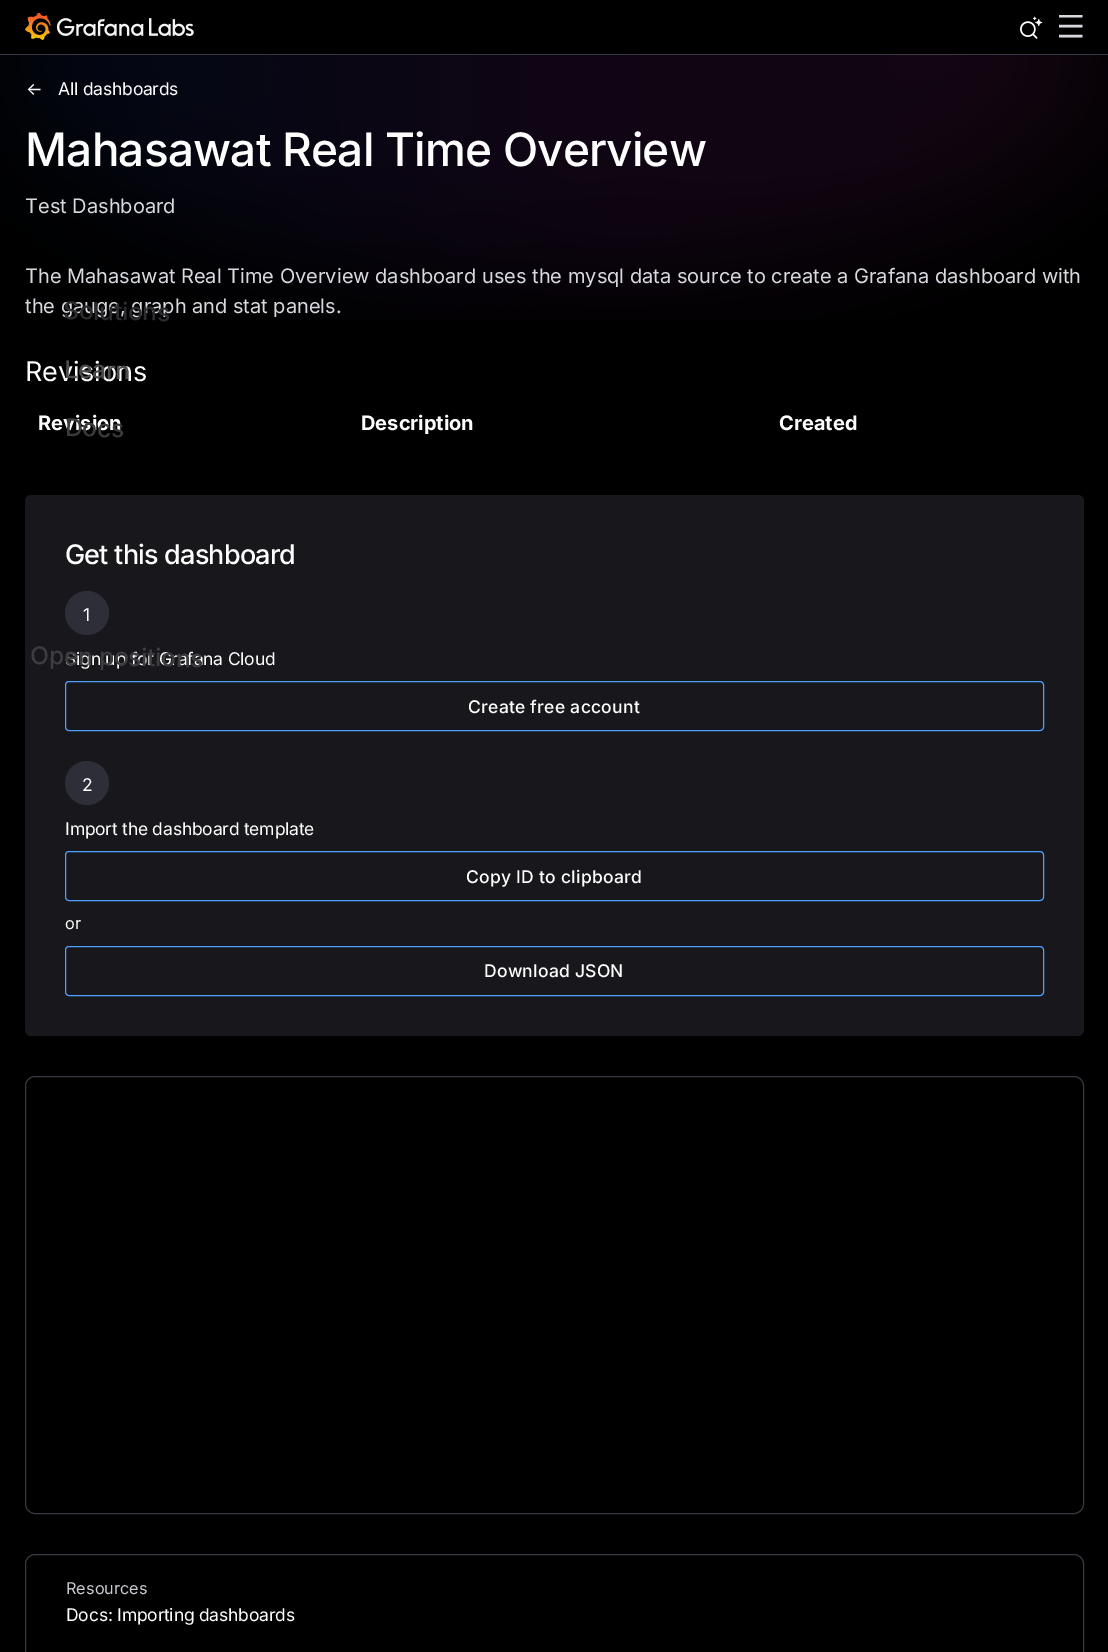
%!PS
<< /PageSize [1108 1652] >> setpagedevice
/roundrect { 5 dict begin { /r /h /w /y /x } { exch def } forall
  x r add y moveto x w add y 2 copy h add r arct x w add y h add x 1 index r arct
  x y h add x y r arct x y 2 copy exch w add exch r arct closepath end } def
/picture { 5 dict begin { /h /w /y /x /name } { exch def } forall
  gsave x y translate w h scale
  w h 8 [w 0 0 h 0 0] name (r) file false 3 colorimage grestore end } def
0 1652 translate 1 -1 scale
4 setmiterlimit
0 setgray
0 0 1108 1652 rectfill
(img1.rgb) 0 55 1108 265 picture
/Inter-Regular [17.5 0 0 -17.5 0 0] selectfont
0.996 setgray
26 95 moveto -0.2 0 (←) ashow
58 95 moveto -0.2 0 (All dashboards) ashow
/Inter-Medium [46 0 0 -46 0 0] selectfont
25 166 moveto -0.8 0 (Mahasawat Real Time Overview) ashow
/Inter-Regular [20 0 0 -20 0 0] selectfont
0.847 0.847 0.875 setrgbcolor
25 213 moveto (Test Dashboard) show
25 283 moveto (The Mahasawat Real Time Overview dashboard uses the mysql data source to create a Grafana dashboard with) show
25 313 moveto (the gauge, graph and stat panels.) show
/Inter-Regular [27 0 0 -27 0 0] selectfont
0.996 setgray
25 381 moveto (Revisions) show
/Inter-Bold [20 0 0 -20 0 0] selectfont
38 430 moveto (Revision) show
361 430 moveto (Description) show
779 430 moveto (Created) show
0.09 0.09 0.11 setrgbcolor
25 495 1059 541 6 roundrect fill
/Inter-Medium [27 0 0 -27 0 0] selectfont
0.996 setgray
65 564 moveto -0.8 0 (Get this dashboard) ashow
0.18 0.18 0.22 setrgbcolor
newpath 87 613 22 0 360 arc closepath fill
/Inter-Regular [17.5 0 0 -17.5 0 0] selectfont
0.996 setgray
83 621 moveto -0.2 0 (1) ashow
65 665 moveto -0.2 0 (Sign up for Grafana Cloud) ashow
0.302 0.627 1 setrgbcolor
65.5 681.5 978 49 3.5 roundrect stroke
/Inter-Medium [17.5 0 0 -17.5 0 0] selectfont
0.996 setgray
468 713 moveto 0.25 0 (Create free account) ashow
0.18 0.18 0.22 setrgbcolor
newpath 87 783 22 0 360 arc closepath fill
/Inter-Regular [17.5 0 0 -17.5 0 0] selectfont
0.996 setgray
82 791 moveto -0.2 0 (2) ashow
65 835 moveto -0.2 0 (Import the dashboard template) ashow
0.302 0.627 1 setrgbcolor
65.5 851.5 978 49 3.5 roundrect stroke
/Inter-Medium [17.5 0 0 -17.5 0 0] selectfont
0.996 setgray
466 883 moveto 0.25 0 (Copy ID to clipboard) ashow
/Inter-Regular [16.25 0 0 -16.25 0 0] selectfont
65 929 moveto -0.2 0 (or) ashow
0.302 0.627 1 setrgbcolor
65.5 946.5 978 49 3.5 roundrect stroke
/Inter-Medium [17.5 0 0 -17.5 0 0] selectfont
0.996 setgray
484 977 moveto 0.25 0 (Download JSON) ashow
0.224 0.224 0.275 setrgbcolor
25.5 1076.5 1058 437 9.5 roundrect stroke
25.5 1554.5 1058 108 9.5 roundrect stroke
/Inter-Regular [16.25 0 0 -16.25 0 0] selectfont
0.792 0.792 0.827 setrgbcolor
66 1594 moveto (Resources) show
/Inter-Regular [17.5 0 0 -17.5 0 0] selectfont
0.996 setgray
66 1621 moveto -0.2 0 (Docs: Importing dashboards) ashow
0.224 0.224 0.275 setrgbcolor
0 54 1108 1 rectfill
(img2.rgb) 25 13 169 27 picture
(img3.rgb) 1020 16 23 23 picture
gsave
1059 15 24 23 rectclip
0.847 0.847 0.875 setrgbcolor
2.5 setlinewidth
newpath 1059 16 moveto 1082.5 16 lineto stroke
grestore
0.847 0.847 0.875 setrgbcolor
2.5 setlinewidth
newpath 1059 26 moveto 1082.5 26 lineto 1059 36 moveto 1082.5 36 lineto stroke
/Inter-Medium [24.5 0 0 -24.5 0 0] selectfont
0.173 0.173 0.18 setrgbcolor
gsave 63 319 translate 1 rotate 0 0 moveto -0.2 0 (Solutions) ashow grestore
0.302 setgray
gsave 64 378 translate 1 rotate 0 0 moveto -0.2 0 (Learn) ashow grestore
0.231 setgray
gsave 65 436 translate 1 rotate 0 0 moveto -0.2 0 (Docs) ashow grestore
0.239 0.239 0.255 setrgbcolor
gsave 30 664 translate 1 rotate 0 0 moveto -0.2 0 (Open positions) ashow grestore
showpage
